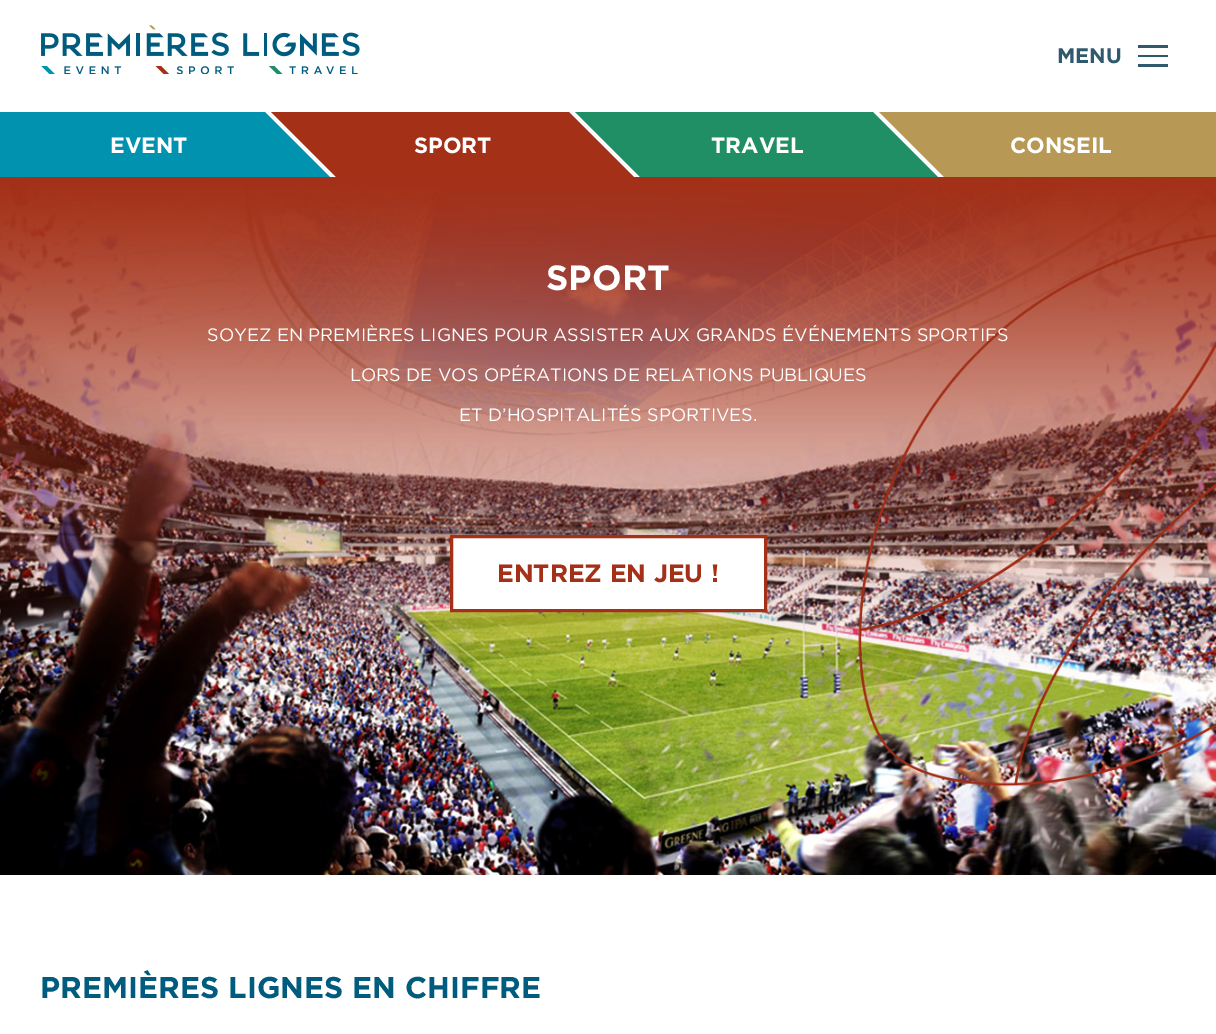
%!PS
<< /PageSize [1216 1034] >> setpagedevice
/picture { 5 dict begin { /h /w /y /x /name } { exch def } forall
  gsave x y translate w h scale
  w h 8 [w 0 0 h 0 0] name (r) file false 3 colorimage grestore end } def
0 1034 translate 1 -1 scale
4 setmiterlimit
1 setgray
0 0 1216 1034 rectfill
(img1.rgb) 41 25 319 49 picture
0.184 0.353 0.431 setrgbcolor
1138 45 30 3 rectfill
/Gotham-Bold [21 0 0 -21 0 0] selectfont
1057 63 moveto (MENU) show
1138 55 30 2 rectfill
1138 64 30 3 rectfill
0 0.573 0.682 setrgbcolor
newpath -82 112 moveto 265 112 lineto 330 177 lineto -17 177 lineto closepath fill
/Gotham-Bold [22 0 0 -22 0 0] selectfont
1 setgray
110 153 moveto (EVENT) show
0.639 0.188 0.09 setrgbcolor
newpath 271 112 moveto 569 112 lineto 634 177 lineto 336 177 lineto closepath fill
1 setgray
414 153 moveto (SPORT) show
0.129 0.561 0.396 setrgbcolor
newpath 575 112 moveto 873 112 lineto 938 177 lineto 640 177 lineto closepath fill
1 setgray
711 153 moveto (TRAVEL) show
0.718 0.596 0.329 setrgbcolor
newpath 879 112 moveto 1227 112 lineto 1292 177 lineto 944 177 lineto closepath fill
1 setgray
1010 153 moveto (CONSEIL) show
(img2.rgb) 0 177 1216 698 picture
/Gotham-Bold [35 0 0 -35 0 0] selectfont
546 290 moveto (SPORT) show
/Gotham-Regular [18 0 0 -18 0 0] selectfont
207 341 moveto (SOYEZ EN PREMIÈRES LIGNES POUR ASSISTER AUX GRANDS ÉVÉNEMENTS SPORTIFS) show
350 381 moveto (LORS DE VOS OPÉRATIONS DE RELATIONS PUBLIQUES) show
459 421 moveto (ET D’HOSPITALITÉS SPORTIVES.) show
newpath 451.5 536.5 moveto 765.5 536.5 lineto 765.5 610.5 lineto 451.5 610.5 lineto closepath gsave fill grestore
0.639 0.188 0.09 setrgbcolor
3 setlinewidth
stroke
/Gotham-Bold [25 0 0 -25 0 0] selectfont
497 582 moveto (ENTREZ EN JEU !) show
/Gotham-Bold [30 0 0 -30 0 0] selectfont
0 0.361 0.494 setrgbcolor
40 998 moveto (PREMIÈRES LIGNES EN CHIFFRE) show
showpage
